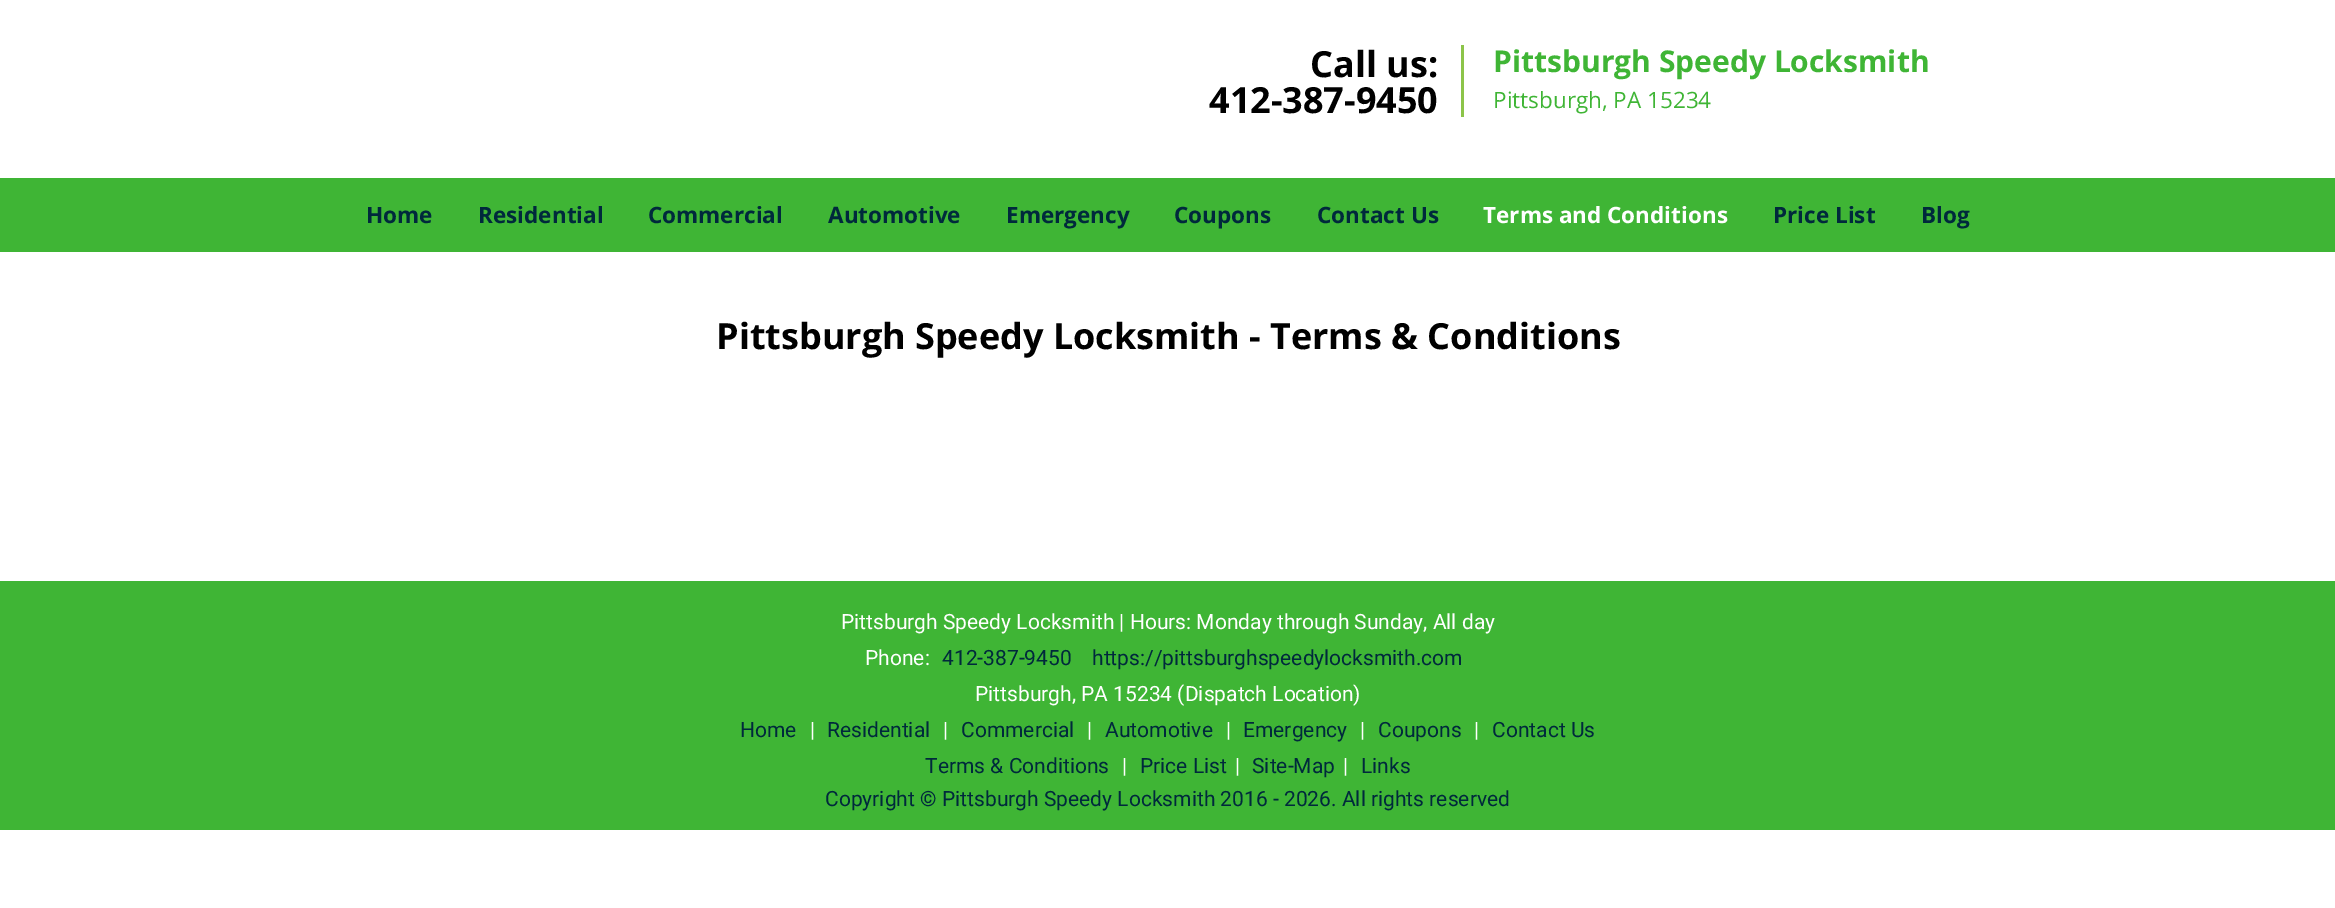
%!PS
<< /PageSize [2335 908] >> setpagedevice
0 908 translate 1 -1 scale
4 setmiterlimit
1 setgray
0 0 2335 908 rectfill
/OpenSans-Bold [36 0 0 -36 0 0] selectfont
0 setgray
1310 77 moveto (Call us:) show
1209 113 moveto (412-387-9450) show
0.549 0.769 0.286 setrgbcolor
1461 45 3 72 rectfill
/OpenSans-Bold [30 0 0 -30 0 0] selectfont
0.247 0.71 0.208 setrgbcolor
1493 72 moveto (Pittsburgh Speedy Locksmith) show
/OpenSans-Regular [22.5 0 0 -22.5 0 0] selectfont
1493 108 moveto (Pittsburgh, PA 15234) show
0 178 2335 74 rectfill
/OpenSans-Bold [22.5 0 0 -22.5 0 0] selectfont
0 0.161 0.235 setrgbcolor
366 223 moveto (Home) show
478 223 moveto (Residential) show
648 223 moveto (Commercial) show
828 223 moveto (Automotive) show
1006 223 moveto (Emergency) show
1174 223 moveto (Coupons) show
1317 223 moveto (Contact Us) show
1 setgray
1483 223 moveto (Terms and Conditions) show
0 0.161 0.235 setrgbcolor
1773 223 moveto (Price List) show
1921 223 moveto (Blog) show
/OpenSans-Bold [36 0 0 -36 0 0] selectfont
0 setgray
716 349 moveto (Pittsburgh Speedy Locksmith - Terms & Conditions) show
0.247 0.71 0.208 setrgbcolor
0 581 2335 249 rectfill
/Roboto-Regular [21 0 0 -21 0 0] selectfont
1 setgray
841 629 moveto (Pittsburgh Speedy Locksmith | Hours: Monday through Sunday, All day) show
865 665 moveto (Phone:) show
0 0.161 0.235 setrgbcolor
942 665 moveto (412-387-9450) show
1092 665 moveto (https://pittsburghspeedylocksmith.com) show
1 setgray
975 701 moveto (Pittsburgh, PA 15234 \(Dispatch Location\)) show
0 0.161 0.235 setrgbcolor
740 737 moveto (Home) show
1 setgray
810 737 moveto (|) show
0 0.161 0.235 setrgbcolor
827 737 moveto (Residential) show
1 setgray
943 737 moveto (|) show
0 0.161 0.235 setrgbcolor
961 737 moveto (Commercial) show
1 setgray
1087 737 moveto (|) show
0 0.161 0.235 setrgbcolor
1105 737 moveto (Automotive) show
1 setgray
1226 737 moveto (|) show
0 0.161 0.235 setrgbcolor
1243 737 moveto (Emergency) show
1 setgray
1360 737 moveto (|) show
0 0.161 0.235 setrgbcolor
1378 737 moveto (Coupons) show
1 setgray
1474 737 moveto (|) show
0 0.161 0.235 setrgbcolor
1492 737 moveto (Contact Us) show
925 773 moveto (Terms & Conditions) show
1 setgray
1122 773 moveto (|) show
0 0.161 0.235 setrgbcolor
1140 773 moveto (Price List) show
1 setgray
1235 773 moveto (|) show
0 0.161 0.235 setrgbcolor
1252 773 moveto (Site-Map) show
1 setgray
1343 773 moveto (|) show
0 0.161 0.235 setrgbcolor
1361 773 moveto (Links) show
825 806 moveto (Copyright) show
/Roboto-Bold [21 0 0 -21 0 0] selectfont
920 806 moveto (©) show
/Roboto-Regular [21 0 0 -21 0 0] selectfont
942 806 moveto (Pittsburgh Speedy Locksmith 2016 - 2026. All rights reserved) show
showpage
